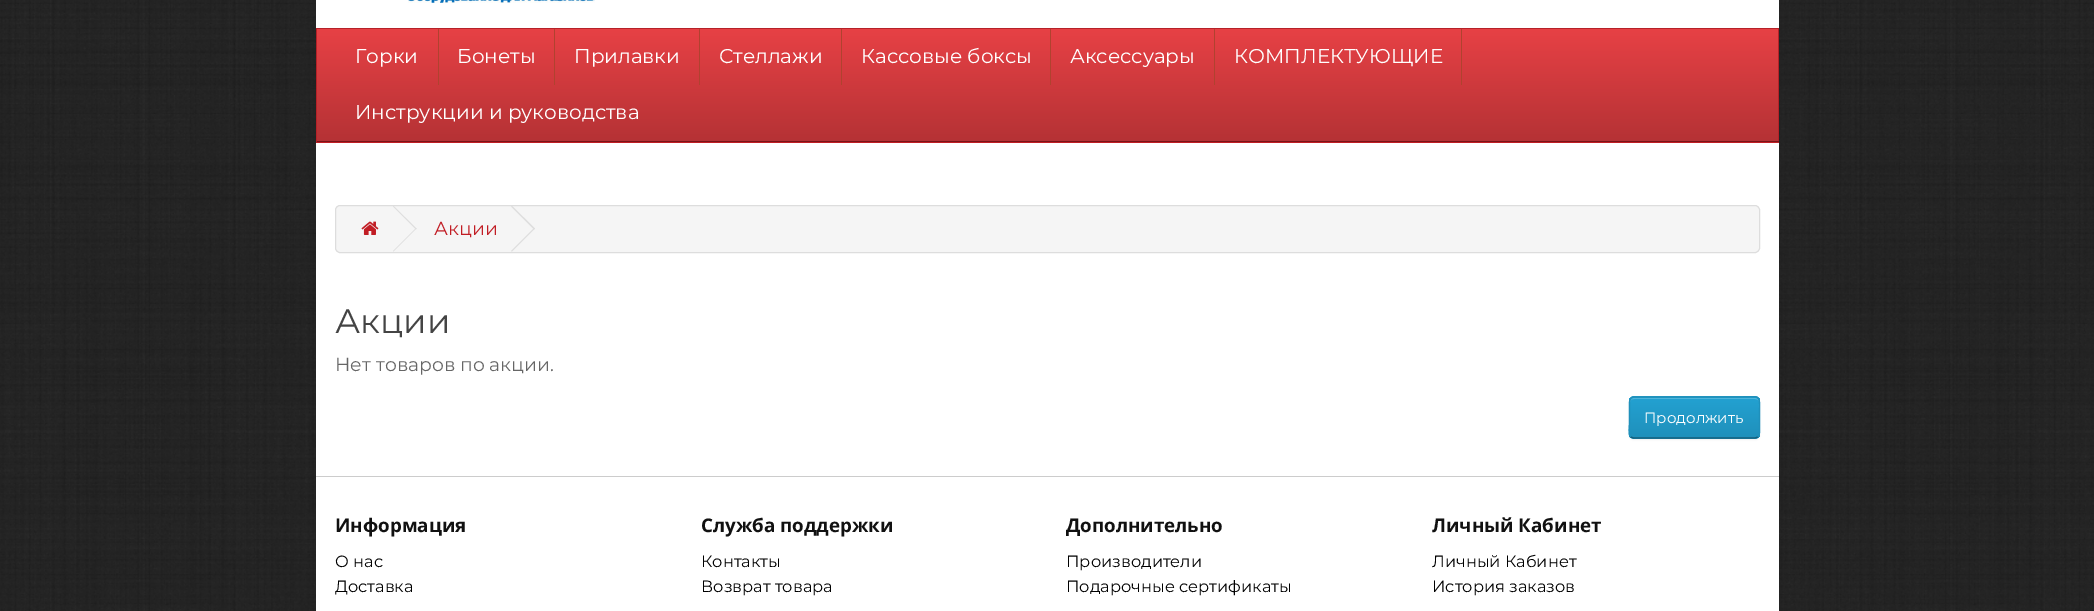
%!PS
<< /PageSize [2094 611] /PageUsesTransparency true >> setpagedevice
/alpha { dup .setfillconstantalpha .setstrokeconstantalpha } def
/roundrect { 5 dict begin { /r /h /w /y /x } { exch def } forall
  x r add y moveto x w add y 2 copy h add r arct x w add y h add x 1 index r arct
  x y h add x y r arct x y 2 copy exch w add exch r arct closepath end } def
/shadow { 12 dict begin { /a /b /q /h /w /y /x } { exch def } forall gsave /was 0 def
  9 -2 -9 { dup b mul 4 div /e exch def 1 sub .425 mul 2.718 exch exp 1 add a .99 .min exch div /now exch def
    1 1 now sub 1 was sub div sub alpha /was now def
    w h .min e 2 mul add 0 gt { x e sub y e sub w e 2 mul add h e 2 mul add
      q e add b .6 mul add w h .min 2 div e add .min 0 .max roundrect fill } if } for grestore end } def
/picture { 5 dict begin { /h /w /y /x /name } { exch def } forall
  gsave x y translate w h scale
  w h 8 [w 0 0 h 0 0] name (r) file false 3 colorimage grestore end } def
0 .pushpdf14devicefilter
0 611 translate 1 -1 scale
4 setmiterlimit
0.2 setgray
0 0 2094 611 rectfill
(img1.rgb) 0 0 2094 611 picture
1 setgray
316 0 1463 28 rectfill
(img2.rgb) 408 0 187 3 picture
0.757 0.114 0.141 setrgbcolor
317 142 1461 1 rectfill
gsave newpath 317 29 moveto 1778 29 lineto 1778 141 lineto 317 141 lineto closepath clip newpath
<< /ShadingType 2 /ColorSpace /DeviceRGB /Coords [1048 29 1048 141] /Extend [true true] /Function << /FunctionType 2 /Domain [0 1] /C0 [0.906 0.255 0.271] /C1 [0.71 0.196 0.208] /N 1 >> >> shfill grestore
0.714 0.129 0.157 setrgbcolor
316 28 1463 1 rectfill
1778 28 1 115 rectfill
0.478 0.078 0.098 setrgbcolor
316 141 1463 1 rectfill
0.714 0.129 0.157 setrgbcolor
316 28 1 115 rectfill
0.69 0.259 0.184 setrgbcolor
438 29 1 56 rectfill
/Montserrat-Thin [20 0 0 -20 0 0] selectfont
1 setgray
355 63 moveto (Горки) show
0.69 0.259 0.184 setrgbcolor
554 29 1 56 rectfill
1 setgray
457 63 moveto (Бонеты) show
0.69 0.259 0.184 setrgbcolor
699 29 1 56 rectfill
1 setgray
574 63 moveto (Прилавки) show
0.69 0.259 0.184 setrgbcolor
841 29 1 56 rectfill
1 setgray
719 63 moveto (Стеллажи) show
0.69 0.259 0.184 setrgbcolor
1050 29 1 56 rectfill
1 setgray
861 63 moveto (Кассовые боксы) show
0.69 0.259 0.184 setrgbcolor
1214 29 1 56 rectfill
1 setgray
1070 63 moveto (Аксессуары) show
0.69 0.259 0.184 setrgbcolor
1461 29 1 56 rectfill
1 setgray
1234 63 moveto (КОМПЛЕКТУЮЩИЕ) show
355 119 moveto (Инструкции и руководства) show
316 143 1463 333 rectfill
0.961 setgray
335.5 205.5 1424 47 4.5 roundrect gsave fill grestore
0.867 setgray
stroke
(img3.rgb) 361 221 18 14 picture
newpath 393 206.5 moveto 393.5 206 lineto 416.5 228.5 lineto 416 229.5 lineto closepath fill
newpath 393 251 moveto 416 228 lineto 416.5 228.5 lineto 393.5 251.5 lineto closepath fill
/Montserrat-Thin [18.75 0 0 -18.75 0 0] selectfont
0.757 0.114 0.141 setrgbcolor
434 235 moveto (Акции) show
0.867 setgray
newpath 511 206.5 moveto 512 206 lineto 535 228.5 lineto 534 229.5 lineto closepath fill
newpath 511 251 moveto 534 228 lineto 535 228.5 lineto 512 251.5 lineto closepath fill
/Montserrat-Thin [34 0 0 -34 0 0] selectfont
0.267 setgray
335 333 moveto (Акции) show
/Montserrat-Thin [18.75 0 0 -18.75 0 0] selectfont
0.4 setgray
335 371 moveto (Нет товаров по акции.) show
0 setgray
1629 398 131 42 5 1 0.05 shadow
0.133 0.604 0.784 setrgbcolor
1629 396 131 43 5 roundrect fill
gsave
1629 396 131 43 5 roundrect clip newpath
gsave newpath 1629 398 moveto 1760 398 lineto 1760 438 lineto 1629 438 lineto closepath clip newpath
<< /ShadingType 2 /ColorSpace /DeviceRGB /Coords [1694 398 1694 438] /Extend [true true] /Function << /FunctionType 2 /Domain [0 1] /C0 [0.137 0.631 0.82] /C1 [0.122 0.565 0.733] /N 1 >> >> shfill grestore
grestore
0.31 0.706 0.855 setrgbcolor
newpath 1634 399 moveto 1755 399 lineto 1757 399 1759 400 1759 402 curveto 1759 400 1757 398 1755 398 curveto 1634 398 lineto 1632 398 1630 400 1630 402 curveto 1630 400 1632 399 1634 399 curveto closepath fill
0.078 0.369 0.478 setrgbcolor
1.2 setlinewidth
newpath 1758 437 moveto 1755 438 lineto 1633.5 438 lineto 1630.5 437 lineto stroke
0.122 0.565 0.733 setrgbcolor
newpath 1630.5 437 moveto 1628 434 1629.5 426 1629.5 423 curveto 1629.5 406.5 lineto 1629.5 403.5 1628.5 397 1634 397 curveto 1735 397 lineto 1763 397 1759.5 392 1759.5 417.5 curveto 1759.5 428.5 lineto 1759.5 430.5 1760 434.5 1758 437 curveto stroke
/Montserrat-Thin [15 0 0 -15 0 0] selectfont
1 setgray
1644 423 moveto (Продолжить) show
316 477 1463 134 rectfill
0.8 setgray
316 476 1463 1 rectfill
/OpenSans-Bold [18.75 0 0 -18.75 0 0] selectfont
0.067 setgray
335 532 moveto (Информация) show
/Montserrat-Thin [16.25 0 0 -16.25 0 0] selectfont
0 setgray
335 567 moveto (О нас) show
335 592 moveto (Доставка) show
/OpenSans-Bold [18.75 0 0 -18.75 0 0] selectfont
0.067 setgray
701 532 moveto (Служба поддержки) show
/Montserrat-Thin [16.25 0 0 -16.25 0 0] selectfont
0 setgray
701 567 moveto (Контакты) show
701 592 moveto (Возврат товара) show
/OpenSans-Bold [18.75 0 0 -18.75 0 0] selectfont
0.067 setgray
1066 532 moveto (Дополнительно) show
/Montserrat-Thin [16.25 0 0 -16.25 0 0] selectfont
0 setgray
1066 567 moveto (Производители) show
1066 592 moveto (Подарочные сертификаты) show
/OpenSans-Bold [18.75 0 0 -18.75 0 0] selectfont
0.067 setgray
1432 532 moveto (Личный Кабинет) show
/Montserrat-Thin [16.25 0 0 -16.25 0 0] selectfont
0 setgray
1432 567 moveto (Личный Кабинет) show
1432 592 moveto (История заказов) show
.poppdf14devicefilter showpage
